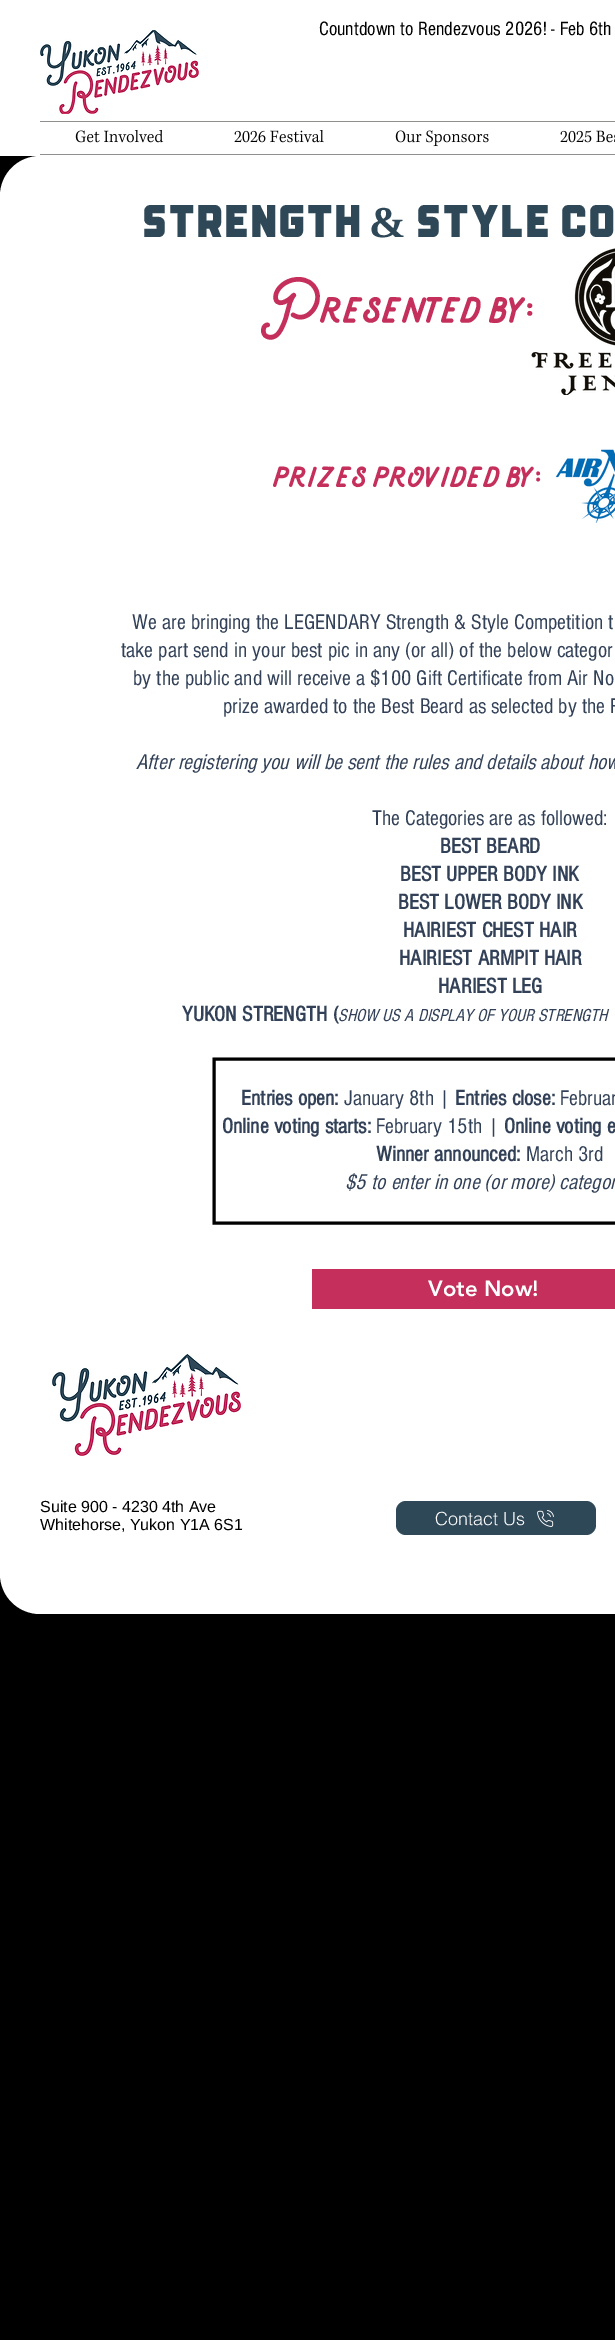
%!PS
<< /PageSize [615 2340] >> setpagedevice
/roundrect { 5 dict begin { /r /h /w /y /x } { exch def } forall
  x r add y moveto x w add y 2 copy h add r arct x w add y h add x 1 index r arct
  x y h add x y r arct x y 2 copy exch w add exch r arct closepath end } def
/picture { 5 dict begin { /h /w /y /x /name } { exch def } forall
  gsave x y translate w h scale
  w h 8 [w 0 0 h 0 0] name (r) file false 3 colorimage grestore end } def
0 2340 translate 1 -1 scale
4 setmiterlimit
0 setgray
0 0 615 2340 rectfill
1 setgray
0 0 615 156 rectfill
/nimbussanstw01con-Regular [20 0 0 -20 0 0] selectfont
0 setgray
319 35 moveto (Countdown to Rendezvous 2026! - Feb 6th) show
(img1.rgb) 40 30 159 84 picture
0.569 0.557 0.557 setrgbcolor
40 121 575 1 rectfill
40 154 575 1 rectfill
(img2.rgb) 75 129 89 14 picture
(img3.rgb) 234 130 90 13 picture
(img4.rgb) 395 130 94 17 picture
(img5.rgb) 560 130 55 13 picture
1 setgray
newpath 40 156 moveto 615 156 lineto 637 156 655 174 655 196 curveto 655 1309 lineto 0 1309 lineto 0 196 lineto 0 174 18 156 40 156 curveto closepath fill
/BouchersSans-Bold [44 0 0 -44 0 0] selectfont
0.184 0.282 0.345 setrgbcolor
141 237 moveto (Strength) show
/LiberationSerif-Bold [44 0 0 -44 0 0] selectfont
369 237 moveto (&) show
/BouchersSans-Bold [44 0 0 -44 0 0] selectfont
415 237 moveto (style co) show
/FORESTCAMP-Regular [49 0 0 -49 0 0] selectfont
0.769 0.184 0.357 setrgbcolor
261 324 moveto (Presented by:) show
(img6.rgb) 531 248 84 147 picture
/FORESTCAMP-Regular [39 0 0 -39 0 0] selectfont
273 488 moveto (prizes provided by:) show
(img7.rgb) 555 449 60 74 picture
/nimbussanstw01con-Regular [22 0 0 -22 0 0] selectfont
0.196 0.255 0.345 setrgbcolor
132 629 moveto (We are bringing the LEGENDARY Strength & Style Competition t) show
121 657 moveto (take part send in your best pic in any \(or all\) of the below categor) show
133 685 moveto (by the public and will receive a $100 Gift Certificate from Air No) show
223 713 moveto (prize awarded to the Best Beard as selected by the R) show
/nimbussanstw01con-Italic [22 0 0 -22 0 0] selectfont
136 769 moveto (After registering you will be sent the rules and details about how) show
/nimbussanstw01con-Regular [22 0 0 -22 0 0] selectfont
372 825 moveto (The Categories are as followed:) show
/nimbussanstw01con-Bold [22 0 0 -22 0 0] selectfont
440 853 moveto (BEST BEARD) show
400 881 moveto (BEST UPPER BODY INK) show
398 909 moveto (BEST LOWER BODY INK) show
403 937 moveto (HAIRIEST CHEST HAIR) show
399 965 moveto (HAIRIEST ARMPIT HAIR) show
438 993 moveto (HARIEST LEG) show
182 1021 moveto (YUKON STRENGTH \() show
/nimbussanstw01con-Italic [18 0 0 -18 0 0] selectfont
338 1021 moveto (SHOW US A DISPLAY OF YOUR STRENGTH) show
0 setgray
3 setlinewidth
newpath 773 1059 moveto 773 1223 lineto 214 1223 lineto 214 1059 lineto closepath stroke
/nimbussanstw01con-Bold [22 0 0 -22 0 0] selectfont
0.196 0.255 0.345 setrgbcolor
241 1105 moveto (Entries open:) show
/nimbussanstw01con-Regular [22 0 0 -22 0 0] selectfont
344 1105 moveto (January 8th |) show
/nimbussanstw01con-Bold [22 0 0 -22 0 0] selectfont
455 1105 moveto (Entries close:) show
/nimbussanstw01con-Regular [22 0 0 -22 0 0] selectfont
560 1105 moveto (Februar) show
/nimbussanstw01con-Bold [22 0 0 -22 0 0] selectfont
222 1133 moveto (Online voting starts:) show
/nimbussanstw01con-Regular [22 0 0 -22 0 0] selectfont
376 1133 moveto (February 15th |) show
/nimbussanstw01con-Bold [22 0 0 -22 0 0] selectfont
504 1133 moveto (Online voting e) show
376 1161 moveto (Winner announced:) show
/nimbussanstw01con-Regular [22 0 0 -22 0 0] selectfont
526 1161 moveto (March 3rd) show
/nimbussanstw01con-Italic [22 0 0 -22 0 0] selectfont
345 1189 moveto ($5 to enter in one \(or more\) categor) show
0.769 0.184 0.357 setrgbcolor
312 1269 303 40 rectfill
/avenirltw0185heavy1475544-Black [22 0 0 -22 0 0] selectfont
1 setgray
428 1296 moveto (Vote Now!) show
newpath 0 1309 moveto 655 1309 lineto 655 1574 lineto 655 1596 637 1614 615 1614 curveto 40 1614 lineto 18 1614 0 1596 0 1574 curveto closepath fill
(img8.rgb) 52 1354 189 102 picture
/LiberationSans-Regular [16 0 0 -16 0 0] selectfont
0 setgray
40 1512 moveto (Suite 900 - 4230 4th Ave) show
40 1530 moveto (Whitehorse, Yukon Y1A 6S1) show
0.184 0.282 0.345 setrgbcolor
396 1501 200 34 10 roundrect fill
/helvetica-Light [18 0 0 -18 0 0] selectfont
1 setgray
435 1525 moveto (Contact Us) show
(img9.rgb) 537 1510 17 17 picture
showpage
